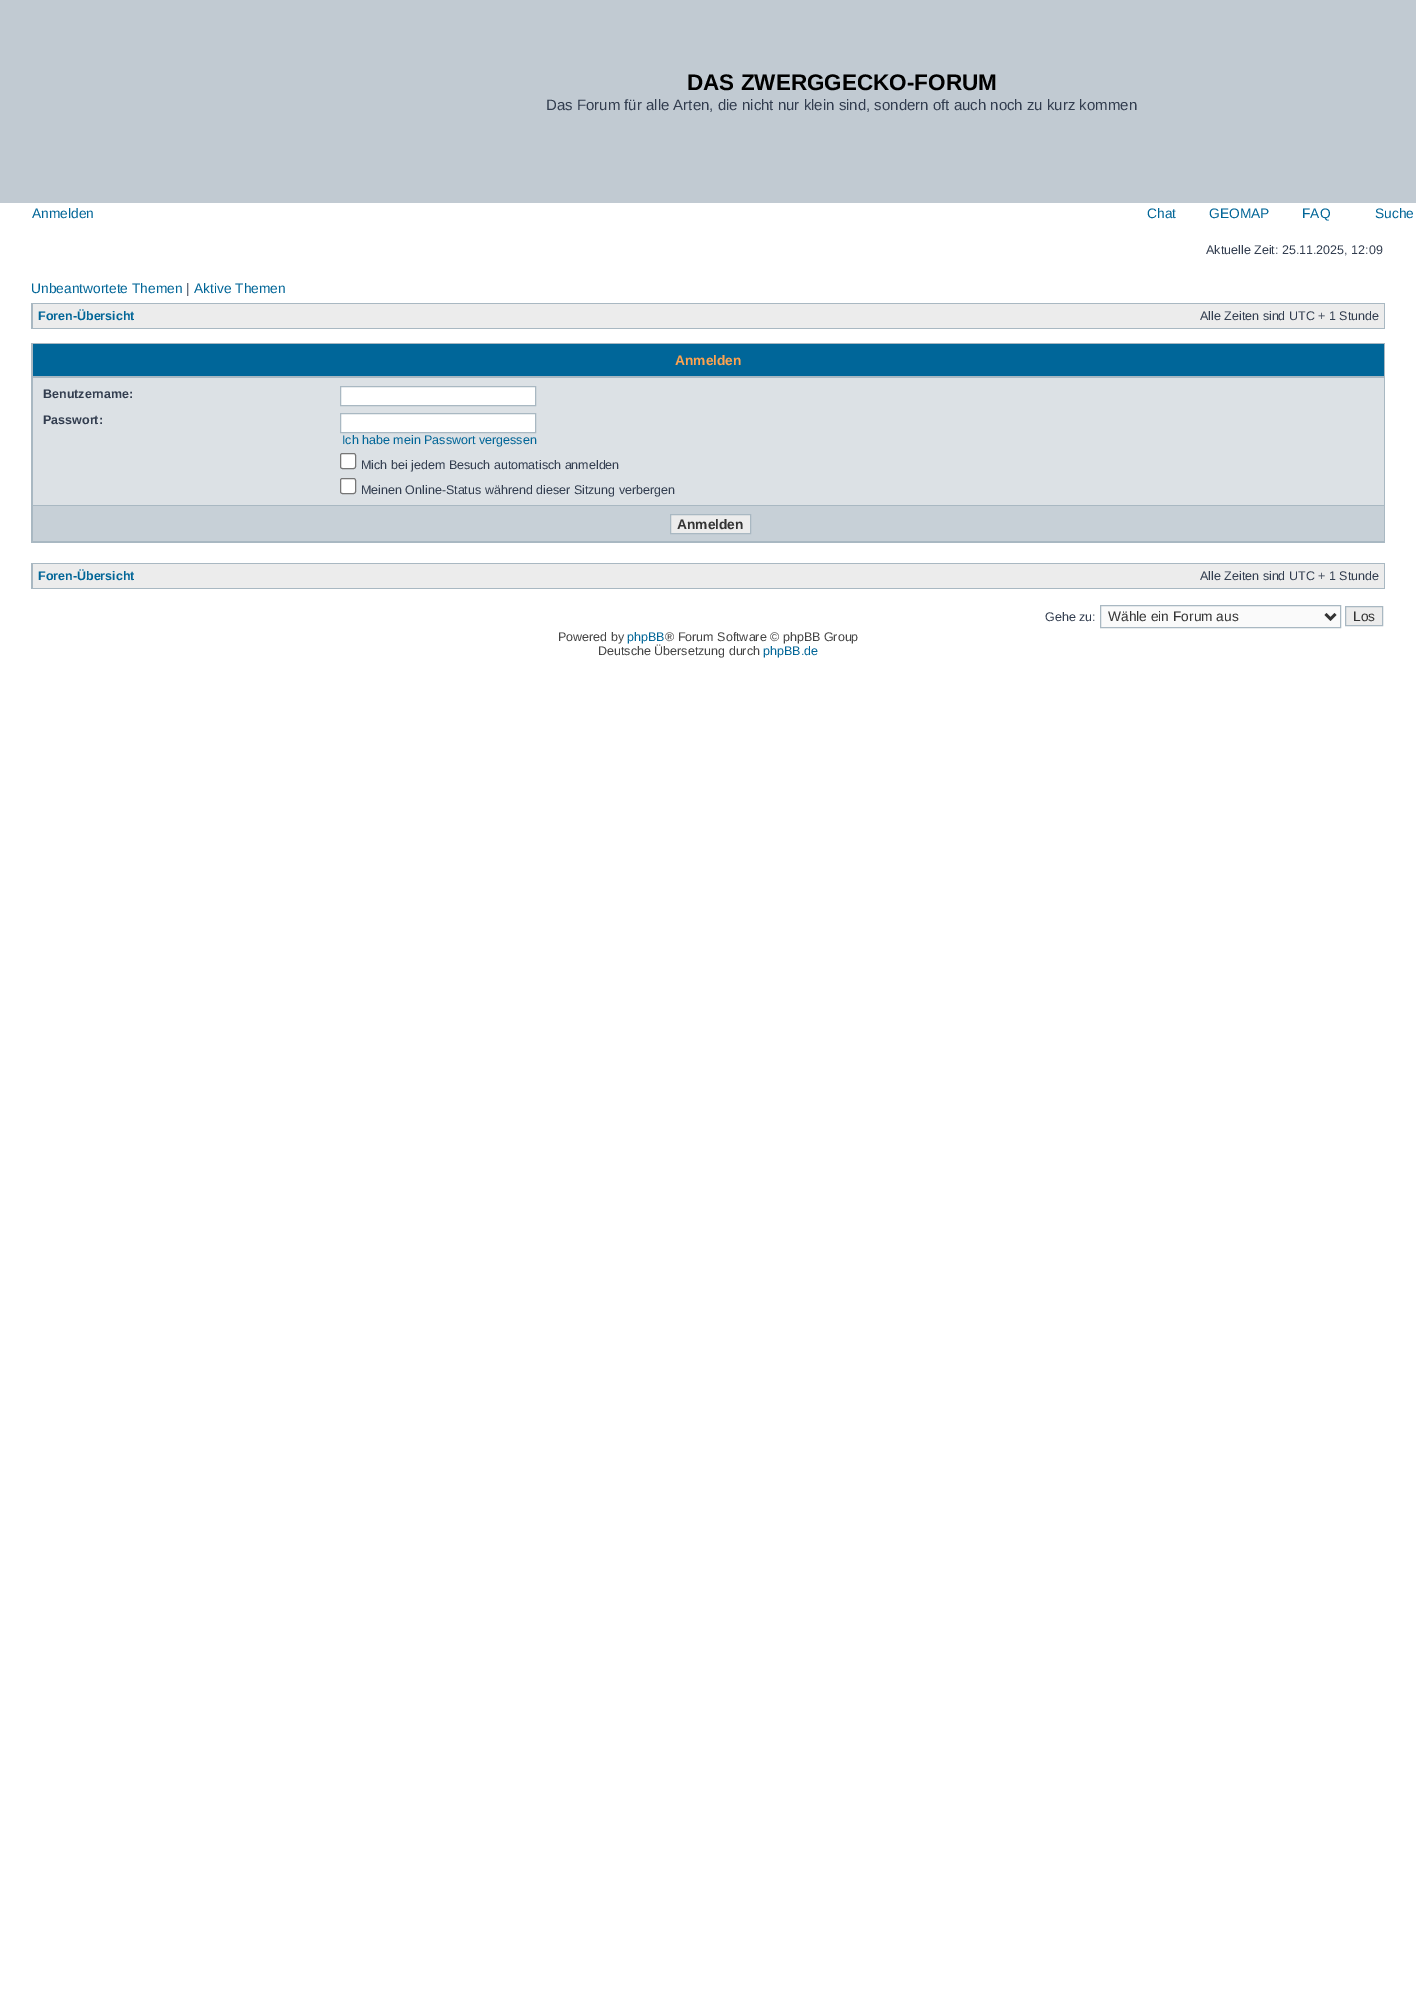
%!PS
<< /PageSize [1416 2003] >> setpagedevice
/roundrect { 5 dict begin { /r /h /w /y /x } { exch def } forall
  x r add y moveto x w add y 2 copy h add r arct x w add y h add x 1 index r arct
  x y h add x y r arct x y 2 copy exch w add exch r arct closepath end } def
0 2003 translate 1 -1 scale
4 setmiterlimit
1 setgray
0 0 1416 2003 rectfill
0.757 0.792 0.824 setrgbcolor
0 0 1416 203 rectfill
/LiberationSans-Bold [22.5 0 0 -22.5 0 0] selectfont
0 setgray
687 90 moveto (DAS ZWERGGECKO-FORUM) show
/LiberationSans-Regular [15 0 0 -15 0 0] selectfont
0.196 0.239 0.31 setrgbcolor
546 110 moveto (Das Forum für alle Arten, die nicht nur klein sind, sondern oft auch noch zu kurz kommen) show
/LiberationSans-Regular [13.75 0 0 -13.75 0 0] selectfont
0 0.396 0.592 setrgbcolor
32 218 moveto (Anmelden) show
1147 218 moveto (Chat) show
1209 218 moveto (GEOMAP) show
1302 218 moveto (FAQ) show
1375 218 moveto (Suche) show
/LiberationSans-Regular [12.5 0 0 -12.5 0 0] selectfont
0.196 0.239 0.31 setrgbcolor
1206 254 moveto (Aktuelle Zeit: 25.11.2025, 12:09) show
/LiberationSans-Regular [13.75 0 0 -13.75 0 0] selectfont
0 0.396 0.592 setrgbcolor
31 293 moveto (Unbeantwortete Themen) show
0.196 0.239 0.31 setrgbcolor
186 293 moveto (|) show
0 0.396 0.592 setrgbcolor
194 293 moveto (Aktive Themen) show
0.663 0.722 0.761 setrgbcolor
31 303 1354 26 rectfill
0.925 setgray
33 304 1351 24 rectfill
/LiberationSans-Bold [12.5 0 0 -12.5 0 0] selectfont
0 0.396 0.592 setrgbcolor
38 320 moveto (Foren-Übersicht) show
/LiberationSans-Regular [12.5 0 0 -12.5 0 0] selectfont
0.196 0.239 0.31 setrgbcolor
1200 320 moveto (Alle Zeiten sind UTC + 1 Stunde) show
0.663 0.722 0.761 setrgbcolor
31 343 1354 200 rectfill
0 0.4 0.6 setrgbcolor
33 344 1351 32 rectfill
/LiberationSans-Bold [13.75 0 0 -13.75 0 0] selectfont
1 0.639 0.31 setrgbcolor
675 365 moveto (Anmelden) show
0.863 0.882 0.898 setrgbcolor
33 378 1351 127 rectfill
/LiberationSans-Bold [12.5 0 0 -12.5 0 0] selectfont
0.196 0.239 0.31 setrgbcolor
43 398 moveto (Benutzername:) show
1 setgray
newpath 340.5 386.5 moveto 535.5 386.5 lineto 535.5 405.5 lineto 340.5 405.5 lineto closepath gsave fill grestore
0.663 0.722 0.761 setrgbcolor
stroke
0.196 0.239 0.31 setrgbcolor
43 424 moveto (Passwort:) show
1 setgray
newpath 340.5 413.5 moveto 535.5 413.5 lineto 535.5 432.5 lineto 340.5 432.5 lineto closepath gsave fill grestore
0.663 0.722 0.761 setrgbcolor
stroke
/LiberationSans-Regular [12.5 0 0 -12.5 0 0] selectfont
0 0.396 0.592 setrgbcolor
342 444 moveto (Ich habe mein Passwort vergessen) show
1 setgray
340.5 453.5 15 15 2 roundrect gsave fill grestore
0.463 setgray
stroke
0.196 0.239 0.31 setrgbcolor
361 469 moveto (Mich bei jedem Besuch automatisch anmelden) show
1 setgray
340.5 478.5 15 15 2 roundrect gsave fill grestore
0.463 setgray
stroke
0.196 0.239 0.31 setrgbcolor
361 494 moveto (Meinen Online-Status während dieser Sitzung verbergen) show
0.78 0.816 0.843 setrgbcolor
33 506 1351 35 rectfill
0.925 setgray
newpath 670.5 514.5 moveto 750.5 514.5 lineto 750.5 533.5 lineto 670.5 533.5 lineto closepath gsave fill grestore
0.663 0.722 0.761 setrgbcolor
stroke
/LiberationSans-Bold [13.75 0 0 -13.75 0 0] selectfont
0.2 setgray
677 529 moveto (Anmelden) show
0.663 0.722 0.761 setrgbcolor
31 563 1354 26 rectfill
0.925 setgray
33 564 1351 24 rectfill
/LiberationSans-Bold [12.5 0 0 -12.5 0 0] selectfont
0 0.396 0.592 setrgbcolor
38 580 moveto (Foren-Übersicht) show
/LiberationSans-Regular [12.5 0 0 -12.5 0 0] selectfont
0.196 0.239 0.31 setrgbcolor
1200 580 moveto (Alle Zeiten sind UTC + 1 Stunde) show
1045 621 moveto (Gehe zu:) show
0.98 setgray
newpath 1100.5 605.5 moveto 1340.5 605.5 lineto 1340.5 627.5 lineto 1100.5 627.5 lineto closepath gsave fill grestore
0.663 0.722 0.761 setrgbcolor
stroke
0.2 setgray
2.5 setlinewidth
newpath 1325.5 614 moveto 1330.5 619 lineto 1335.5 614 lineto stroke
/LiberationSans-Regular [13.75 0 0 -13.75 0 0] selectfont
1108 621 moveto (Wähle ein Forum aus) show
0.925 setgray
newpath 1345.5 606.5 moveto 1382.5 606.5 lineto 1382.5 625.5 lineto 1345.5 625.5 lineto closepath gsave fill grestore
0.663 0.722 0.761 setrgbcolor
1 setlinewidth
stroke
0.2 setgray
1353 621 moveto (Los) show
/LiberationSans-Regular [12.5 0 0 -12.5 0 0] selectfont
0.267 setgray
558 641 moveto (Powered by) show
0 0.396 0.592 setrgbcolor
627 641 moveto (phpBB) show
0.267 setgray
665 641 moveto (® Forum Software © phpBB Group) show
598 655 moveto (Deutsche Übersetzung durch) show
0 0.396 0.592 setrgbcolor
763 655 moveto (phpBB.de) show
showpage
